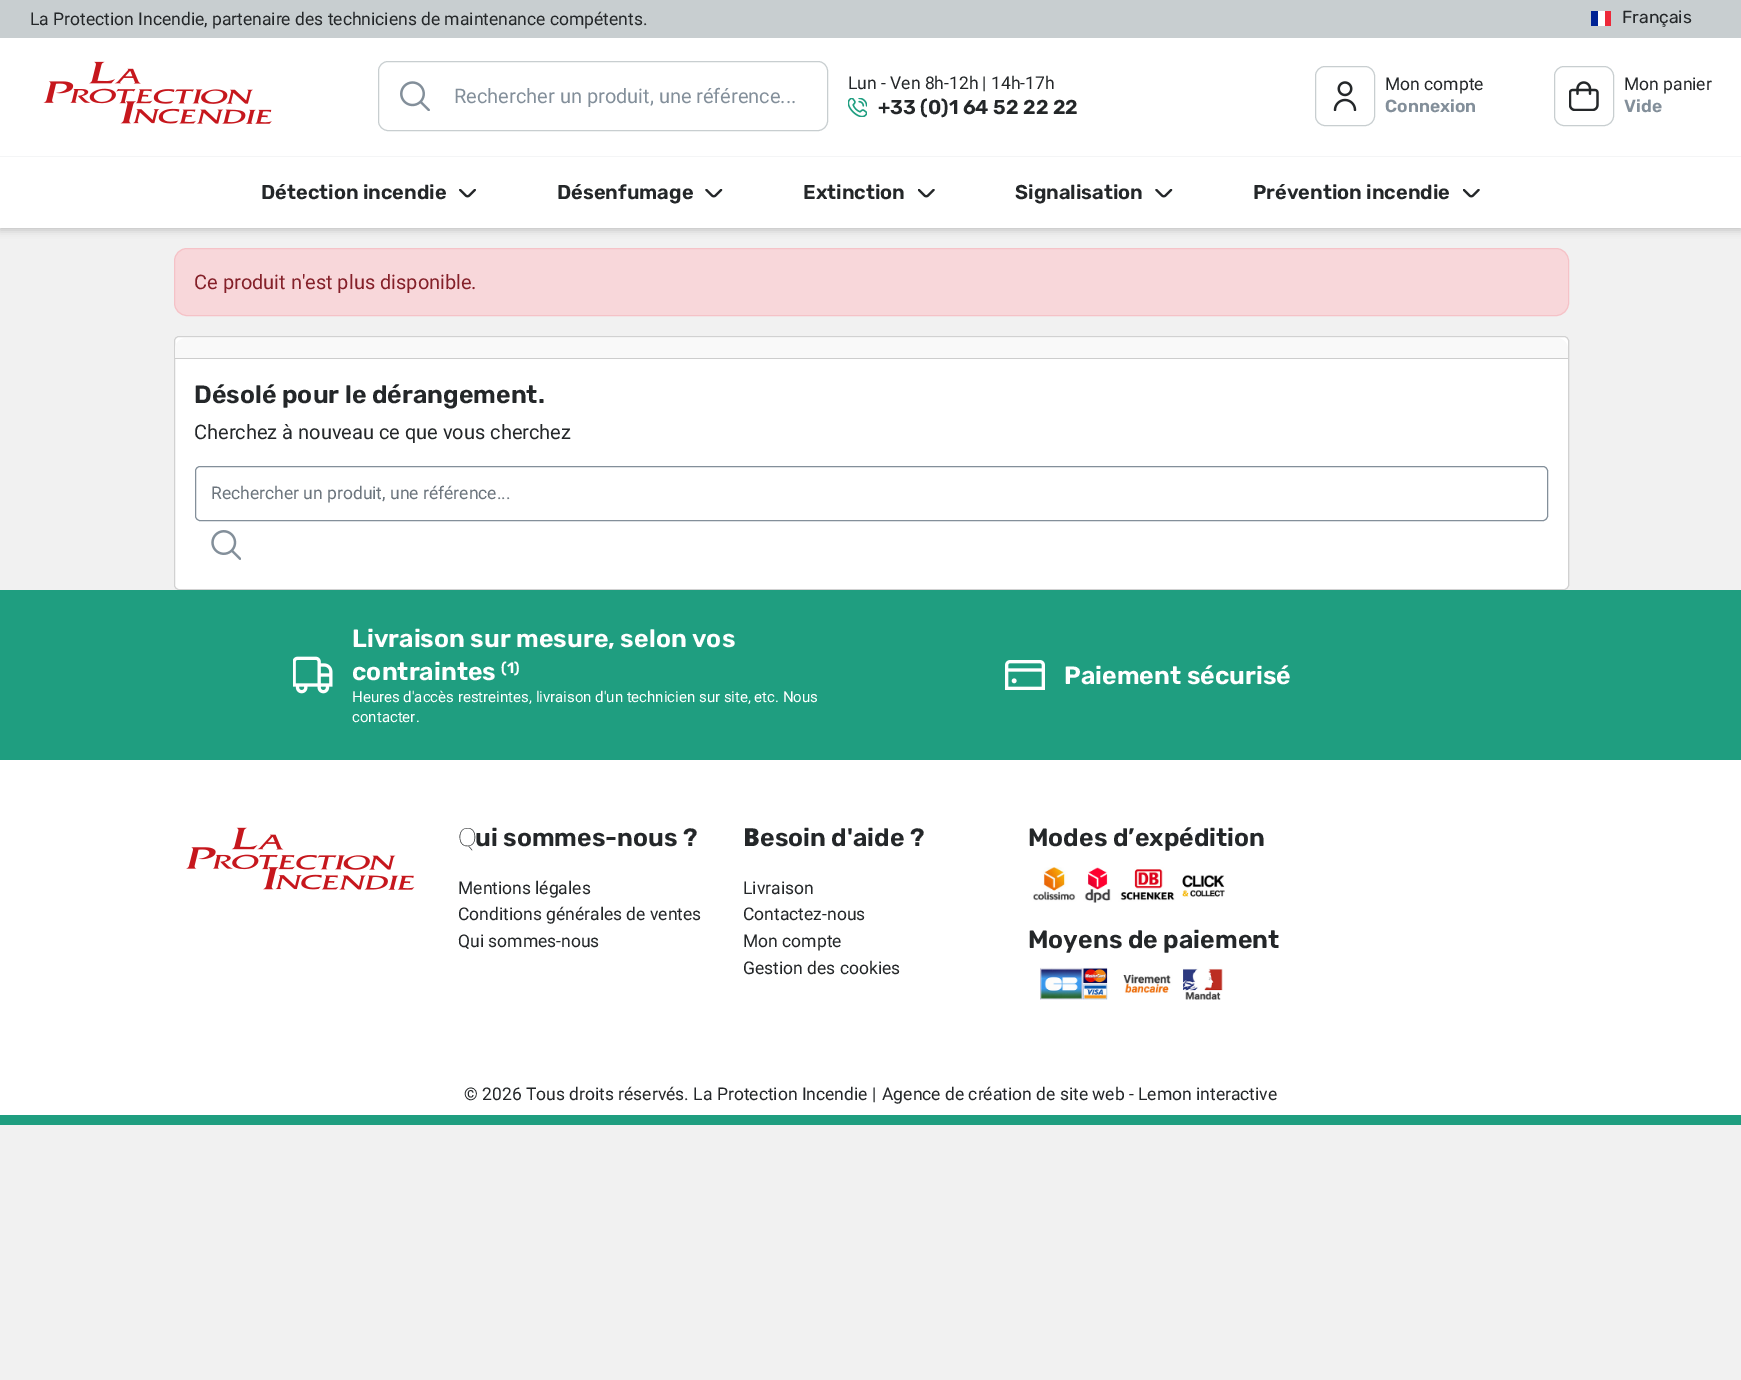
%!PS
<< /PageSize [1741 1380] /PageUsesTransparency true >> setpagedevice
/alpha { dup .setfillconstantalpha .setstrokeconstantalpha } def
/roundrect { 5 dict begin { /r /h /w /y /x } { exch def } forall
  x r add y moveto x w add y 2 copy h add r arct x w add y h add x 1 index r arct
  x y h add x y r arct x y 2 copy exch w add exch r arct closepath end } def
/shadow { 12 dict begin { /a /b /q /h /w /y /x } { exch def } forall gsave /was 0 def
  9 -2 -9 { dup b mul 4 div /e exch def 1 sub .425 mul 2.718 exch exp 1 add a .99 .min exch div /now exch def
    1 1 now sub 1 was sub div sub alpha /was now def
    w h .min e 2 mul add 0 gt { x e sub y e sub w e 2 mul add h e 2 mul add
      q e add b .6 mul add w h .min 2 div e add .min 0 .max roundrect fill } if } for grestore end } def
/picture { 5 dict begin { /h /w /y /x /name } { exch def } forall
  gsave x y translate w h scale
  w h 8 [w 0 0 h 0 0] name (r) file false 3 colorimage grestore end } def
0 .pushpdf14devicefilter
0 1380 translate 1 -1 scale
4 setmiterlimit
0.945 setgray
0 0 1741 1380 rectfill
0 setgray
0 3 1741 227 0 4 0.2 shadow
1 setgray
0 38 1741 190 rectfill
0.784 0.808 0.816 setrgbcolor
0 0 1741 38 rectfill
/Roboto-Regular [17.5 0 0 -17.5 0 0] selectfont
0.141 0.153 0.161 setrgbcolor
30 25 moveto (La Protection Incendie, partenaire des techniciens de maintenance compétents.) show
0.929 0.161 0.224 setrgbcolor
1605 11 6 15 rectfill
1 setgray
1598 11 7 15 rectfill
0 0.137 0.584 setrgbcolor
1591 11 7 15 rectfill
/Rubik-Regular [17.5 0 0 -17.5 0 0] selectfont
0.141 0.153 0.161 setrgbcolor
1622 23 moveto (Français) show
(img1.rgb) 43 61 229 63 picture
0.784 0.808 0.816 setrgbcolor
378.5 61.5 449 69 9.5 roundrect stroke
(img2.rgb) 400 81 30 30 picture
/Roboto-Regular [20 0 0 -20 0 0] selectfont
0.514 0.561 0.604 setrgbcolor
454 103 moveto (Rechercher un produit, une référence...) show
/Roboto-Regular [17.5 0 0 -17.5 0 0] selectfont
0.141 0.153 0.161 setrgbcolor
848 89 moveto (Lun - Ven 8h-12h | 14h-17h) show
(img3.rgb) 848 98 19 19 picture
/Rubik-SemiBold [20 0 0 -20 0 0] selectfont
878 114 moveto (+33 \(0\)1 64 52 22 22) show
0.784 0.808 0.816 setrgbcolor
1315.5 66.5 59 59 9.5 roundrect stroke
(img4.rgb) 1333 81 24 30 picture
/Roboto-Regular [17.5 0 0 -17.5 0 0] selectfont
0.141 0.153 0.161 setrgbcolor
1385 90 moveto (Mon compte) show
/Rubik-SemiBold [17.5 0 0 -17.5 0 0] selectfont
0.514 0.561 0.604 setrgbcolor
1385 112 moveto (Connexion) show
0.784 0.808 0.816 setrgbcolor
1554.5 66.5 59 59 9.5 roundrect stroke
(img5.rgb) 1569 81 30 30 picture
/Roboto-Regular [17.5 0 0 -17.5 0 0] selectfont
0.141 0.153 0.161 setrgbcolor
1624 90 moveto (Mon panier) show
/Rubik-SemiBold [17.5 0 0 -17.5 0 0] selectfont
0.514 0.561 0.604 setrgbcolor
1624 112 moveto (Vide) show
0.957 0.961 0.965 setrgbcolor
0 156 1741 1 rectfill
/Rubik-SemiBold [20 0 0 -20 0 0] selectfont
0.141 0.153 0.161 setrgbcolor
261 199 moveto (Détection incendie) show
(img6.rgb) 459 189 17 9 picture
557 199 moveto (Désenfumage) show
(img7.rgb) 705 189 18 9 picture
803 199 moveto (Extinction) show
(img8.rgb) 918 189 17 9 picture
1015 199 moveto (Signalisation) show
(img7.rgb) 1155 189 18 9 picture
1253 199 moveto (Prévention incendie) show
(img8.rgb) 1463 189 17 9 picture
0.973 0.843 0.855 setrgbcolor
174.5 248.5 1394 67 12.5 roundrect gsave fill grestore
0.961 0.761 0.78 setrgbcolor
stroke
/Roboto-Regular [20 0 0 -20 0 0] selectfont
0.518 0.125 0.161 setrgbcolor
194 289 moveto (Ce produit n'est plus disponible.) show
1 setgray
174 336 1395 254 5 roundrect fill
0.18 alpha
0 setgray
174.5 336.5 1394 253 4.5 roundrect stroke
1 alpha
0.976 setgray
newpath 186 338 moveto 1557 338 lineto 1563 338 1568 343 1568 349 curveto 1568 359 lineto 175 359 lineto 175 349 lineto 175 343 180 338 186 338 curveto closepath fill
0.804 setgray
175 358 1393 1 rectfill
/Rubik-SemiBold [25 0 0 -25 0 0] selectfont
0.141 0.153 0.161 setrgbcolor
194 403 moveto (Désolé pour le dérangement.) show
/Roboto-Regular [20 0 0 -20 0 0] selectfont
194 439 moveto (Cherchez à nouveau ce que vous cherchez) show
0.514 0.561 0.604 setrgbcolor
195.5 466.5 1352 54 4.5 roundrect stroke
/Roboto-Regular [17.5 0 0 -17.5 0 0] selectfont
0.424 0.459 0.49 setrgbcolor
211 499 moveto (Rechercher un produit, une référence...) show
(img9.rgb) 211 530 30 30 picture
0.122 0.62 0.502 setrgbcolor
0 590 1741 170 rectfill
(img10.rgb) 293 656 40 38 picture
/Rubik-SemiBold [25 0 0 -25 0 0] selectfont
1 setgray
352 647 moveto (Livraison sur mesure, selon vos) show
352 680 moveto (contraintes) show
/Rubik-SemiBold [15 0 0 -15 0 0] selectfont
501 673 moveto (\(1\)) show
/Roboto-Regular [15 0 0 -15 0 0] selectfont
352 702 moveto (Heures d'accès restreintes, livraison d'un technicien sur site, etc. Nous) show
352 722 moveto (contacter.) show
(img11.rgb) 1005 660 40 30 picture
/Rubik-SemiBold [25 0 0 -25 0 0] selectfont
1064 684 moveto (Paiement sécurisé) show
0 760 1741 355 rectfill
(img12.rgb) 186 827 229 63 picture
/NotoSans-Thin [25 0 0 -25 0 0] selectfont
0.141 0.153 0.161 setrgbcolor
458 846 moveto (Q) show
/Rubik-SemiBold [25 0 0 -25 0 0] selectfont
475 846 moveto (ui sommes-nous ?) show
/Roboto-Regular [17.5 0 0 -17.5 0 0] selectfont
458 894 moveto (Mentions légales) show
458 920 moveto (Conditions générales de ventes) show
458 947 moveto (Qui sommes-nous) show
/NotoSans-Black [25 0 0 -25 0 0] selectfont
743 846 moveto (B) show
/Rubik-SemiBold [25 0 0 -25 0 0] selectfont
760 846 moveto (esoin d'aide ?) show
/Roboto-Regular [17.5 0 0 -17.5 0 0] selectfont
743 894 moveto (Livraison) show
743 920 moveto (Contactez-nous) show
743 947 moveto (Mon compte) show
743 974 moveto (Gestion des cookies) show
/Rubik-SemiBold [25 0 0 -25 0 0] selectfont
1028 846 moveto (Modes d’expédition) show
(img13.rgb) 1033 867 192 36 picture
1028 948 moveto (Moyens de paiement) show
(img14.rgb) 1040 967 183 33 picture
/Roboto-Regular [17.5 0 0 -17.5 0 0] selectfont
464 1100 moveto (© 2026 Tous droits réservés. La Protection Incendie |) show
882 1100 moveto (Agence de création de site web - Lemon interactive) show
0.122 0.62 0.502 setrgbcolor
0 1115 1741 10 rectfill
.poppdf14devicefilter showpage
